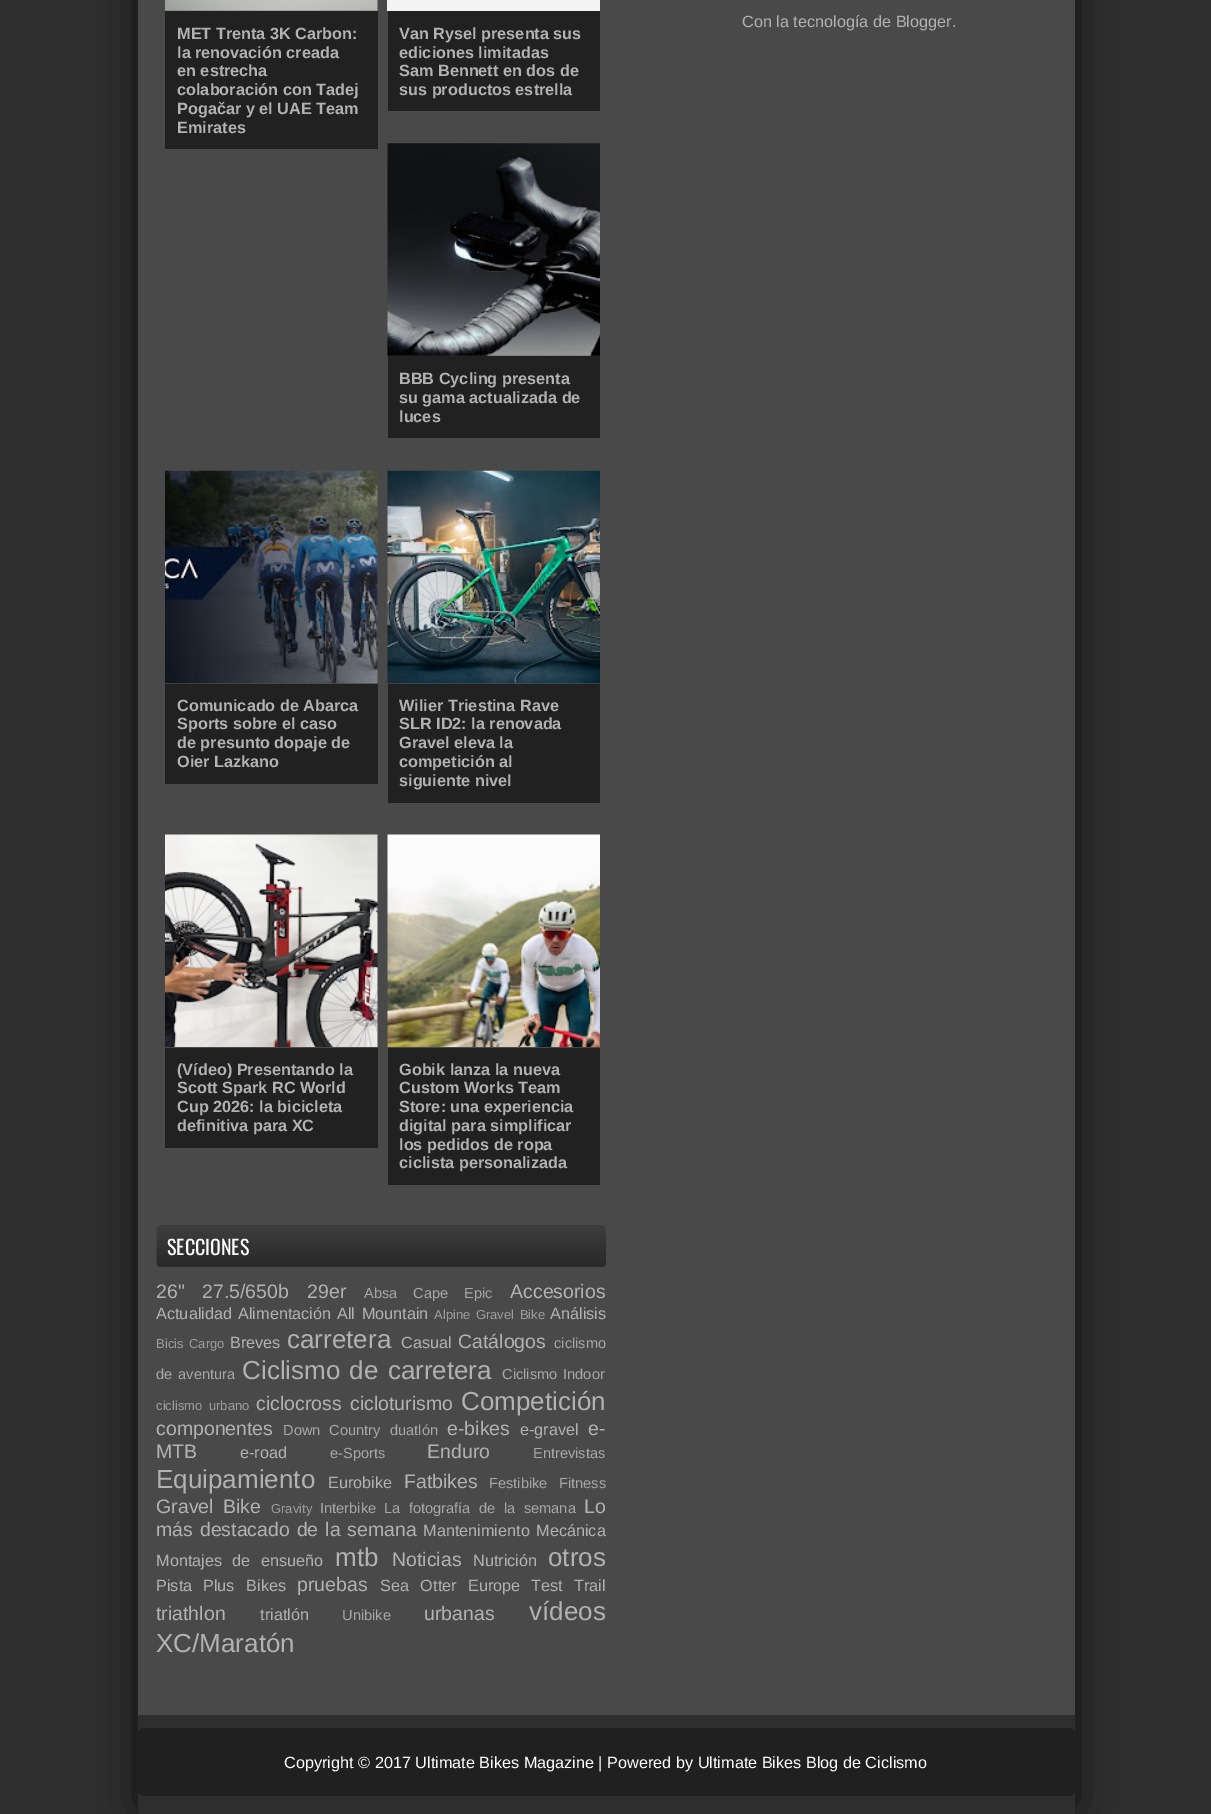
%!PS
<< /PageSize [1211 1814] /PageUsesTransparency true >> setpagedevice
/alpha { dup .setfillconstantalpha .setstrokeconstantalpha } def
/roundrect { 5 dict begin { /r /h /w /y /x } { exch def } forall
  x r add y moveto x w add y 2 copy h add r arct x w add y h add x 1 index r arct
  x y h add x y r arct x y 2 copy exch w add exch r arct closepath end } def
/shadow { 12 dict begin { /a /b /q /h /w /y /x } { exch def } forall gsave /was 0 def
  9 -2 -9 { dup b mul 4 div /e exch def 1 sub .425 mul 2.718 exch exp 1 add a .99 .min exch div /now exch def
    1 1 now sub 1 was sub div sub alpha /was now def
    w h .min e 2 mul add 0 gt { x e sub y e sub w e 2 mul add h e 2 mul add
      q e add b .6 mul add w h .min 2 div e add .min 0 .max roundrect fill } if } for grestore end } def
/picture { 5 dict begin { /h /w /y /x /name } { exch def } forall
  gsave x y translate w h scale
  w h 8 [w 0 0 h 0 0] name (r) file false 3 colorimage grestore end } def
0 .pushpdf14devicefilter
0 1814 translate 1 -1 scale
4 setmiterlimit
0.18 setgray
0 0 1211 1814 rectfill
gsave
newpath 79 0 moveto 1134 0 lineto 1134 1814 lineto 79 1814 lineto closepath 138 -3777 moveto 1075 -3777 lineto 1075 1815 lineto 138 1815 lineto closepath eoclip newpath
0 setgray
148 -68 917 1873 0 22.5 1 shadow
grestore
0.286 setgray
138 0 937 1715 rectfill
/LiberationSans-Regular [16.25 0 0 -16.25 0 0] selectfont
0.698 setgray
742 27 moveto (Con la tecnología de Blogger.) show
(img1.rgb) 165 0 213 11 picture
0.129 setgray
165 11 213 138 rectfill
/LiberationSans-Bold [16.25 0 0 -16.25 0 0] selectfont
0.698 setgray
177 39 moveto (MET Trenta 3K Carbon:) show
177 58 moveto (la renovación creada) show
177 76 moveto (en estrecha) show
177 95 moveto (colaboración con Tadej) show
177 114 moveto (Pogačar y el UAE Team) show
177 133 moveto (Emirates) show
0.957 setgray
387 0 213 11 rectfill
0.129 setgray
388 11 212 100 rectfill
0.698 setgray
399 39 moveto (Van Rysel presenta sus) show
399 58 moveto (ediciones limitadas) show
399 76 moveto (Sam Bennett en dos de) show
399 95 moveto (sus productos estrella) show
(img2.rgb) 387 143 213 213 picture
0.129 setgray
388 356 212 82 rectfill
0.698 setgray
399 384 moveto (BBB Cycling presenta) show
399 403 moveto (su gama actualizada de) show
399 422 moveto (luces) show
(img3.rgb) 165 470 213 214 picture
0.129 setgray
165 684 213 100 rectfill
0.698 setgray
177 711 moveto (Comunicado de Abarca) show
177 729 moveto (Sports sobre el caso) show
177 748 moveto (de presunto dopaje de) show
177 767 moveto (Oier Lazkano) show
(img4.rgb) 387 470 213 214 picture
0.129 setgray
388 684 212 119 rectfill
0.698 setgray
399 711 moveto (Wilier Triestina Rave) show
399 729 moveto (SLR ID2: la renovada) show
399 748 moveto (Gravel eleva la) show
399 767 moveto (competición al) show
399 786 moveto (siguiente nivel) show
(img5.rgb) 165 834 213 213 picture
0.129 setgray
165 1048 213 100 rectfill
0.698 setgray
177 1075 moveto (\(Vídeo\) Presentando la) show
177 1093 moveto (Scott Spark RC World) show
177 1112 moveto (Cup 2026: la bicicleta) show
177 1131 moveto (definitiva para XC) show
(img6.rgb) 387 834 213 213 picture
0.129 setgray
388 1048 212 137 rectfill
0.698 setgray
399 1075 moveto (Gobik lanza la nueva) show
399 1093 moveto (Custom Works Team) show
399 1112 moveto (Store: una experiencia) show
399 1131 moveto (digital para simplificar) show
399 1150 moveto (los pedidos de ropa) show
399 1168 moveto (ciclista personalizada) show
(img7.rgb) 156 1225 450 42 picture
/Oswald-Regular [20 0 0 -20 0 0] selectfont
1 setgray
167 1255 moveto (SECCIONES) show
/LiberationSans-Regular [19.5 0 0 -19.5 0 0] selectfont
0.698 setgray
156 1298 moveto (26") show
202 1298 moveto (27.5/650b) show
307 1298 moveto (29er) show
/LiberationSans-Regular [14.6 0 0 -14.6 0 0] selectfont
0.659 setgray
364 1298 moveto 12 0 32 (Absa Cape Epic) widthshow
/LiberationSans-Regular [19.5 0 0 -19.5 0 0] selectfont
0.698 setgray
510 1298 moveto (Accesorios) show
/LiberationSans-Regular [16.25 0 0 -16.25 0 0] selectfont
156 1319 moveto (Actualidad) show
238 1319 moveto (Alimentación) show
337 1319 moveto 2 0 32 (All Mountain) widthshow
/LiberationSans-Regular [13 0 0 -13 0 0] selectfont
0.616 setgray
434 1319 moveto 2 0 32 (Alpine Gravel Bike) widthshow
/LiberationSans-Regular [16.25 0 0 -16.25 0 0] selectfont
0.698 setgray
550 1319 moveto (Análisis) show
/LiberationSans-Regular [13 0 0 -13 0 0] selectfont
0.616 setgray
156 1348 moveto 2 0 32 (Bicis Cargo) widthshow
/LiberationSans-Regular [16.25 0 0 -16.25 0 0] selectfont
0.698 setgray
230 1348 moveto (Breves) show
/LiberationSans-Regular [26 0 0 -26 0 0] selectfont
287 1348 moveto (carretera) show
/LiberationSans-Regular [16.25 0 0 -16.25 0 0] selectfont
401 1348 moveto (Casual) show
/LiberationSans-Regular [19.5 0 0 -19.5 0 0] selectfont
458 1348 moveto (Catálogos) show
/LiberationSans-Regular [14.6 0 0 -14.6 0 0] selectfont
0.659 setgray
554 1348 moveto (ciclismo) show
156 1379 moveto 2 0 32 (de aventura) widthshow
/LiberationSans-Regular [26 0 0 -26 0 0] selectfont
0.698 setgray
242 1379 moveto 2 0 32 (Ciclismo de carretera) widthshow
/LiberationSans-Regular [14.6 0 0 -14.6 0 0] selectfont
0.659 setgray
502 1379 moveto 2 0 32 (Ciclismo Indoor) widthshow
/LiberationSans-Regular [13 0 0 -13 0 0] selectfont
0.616 setgray
156 1410 moveto 3 0 32 (ciclismo urbano) widthshow
/LiberationSans-Regular [19.5 0 0 -19.5 0 0] selectfont
0.698 setgray
256 1410 moveto (ciclocross) show
350 1410 moveto (cicloturismo) show
/LiberationSans-Regular [26 0 0 -26 0 0] selectfont
461 1410 moveto (Competición) show
/LiberationSans-Regular [19.5 0 0 -19.5 0 0] selectfont
156 1435 moveto (componentes) show
/LiberationSans-Regular [14.6 0 0 -14.6 0 0] selectfont
0.659 setgray
283 1435 moveto 5 0 32 (Down Country) widthshow
390 1435 moveto (duatlón) show
/LiberationSans-Regular [19.5 0 0 -19.5 0 0] selectfont
0.698 setgray
447 1435 moveto (e-bikes) show
/LiberationSans-Regular [16.25 0 0 -16.25 0 0] selectfont
520 1435 moveto (e-gravel) show
/LiberationSans-Regular [19.5 0 0 -19.5 0 0] selectfont
588 1435 moveto (e-) show
156 1458 moveto (MTB) show
/LiberationSans-Regular [16.25 0 0 -16.25 0 0] selectfont
240 1458 moveto (e-road) show
/LiberationSans-Regular [14.6 0 0 -14.6 0 0] selectfont
0.659 setgray
330 1458 moveto (e-Sports) show
/LiberationSans-Regular [19.5 0 0 -19.5 0 0] selectfont
0.698 setgray
427 1458 moveto (Enduro) show
/LiberationSans-Regular [14.6 0 0 -14.6 0 0] selectfont
0.659 setgray
533 1458 moveto (Entrevistas) show
/LiberationSans-Regular [26 0 0 -26 0 0] selectfont
0.698 setgray
156 1488 moveto (Equipamiento) show
/LiberationSans-Regular [16.25 0 0 -16.25 0 0] selectfont
328 1488 moveto (Eurobike) show
/LiberationSans-Regular [19.5 0 0 -19.5 0 0] selectfont
404 1488 moveto (Fatbikes) show
/LiberationSans-Regular [14.6 0 0 -14.6 0 0] selectfont
0.659 setgray
489 1488 moveto (Festibike) show
559 1488 moveto (Fitness) show
/LiberationSans-Regular [19.5 0 0 -19.5 0 0] selectfont
0.698 setgray
156 1513 moveto 4 0 32 (Gravel Bike) widthshow
/LiberationSans-Regular [13 0 0 -13 0 0] selectfont
0.616 setgray
271 1513 moveto (Gravity) show
/LiberationSans-Regular [14.6 0 0 -14.6 0 0] selectfont
0.659 setgray
320 1513 moveto (Interbike) show
384 1513 moveto 4.5 0 32 (La fotografía de la semana) widthshow
/LiberationSans-Regular [19.5 0 0 -19.5 0 0] selectfont
0.698 setgray
584 1513 moveto (Lo) show
156 1536 moveto 1.5 0 32 (más destacado de la semana) widthshow
/LiberationSans-Regular [16.25 0 0 -16.25 0 0] selectfont
423 1536 moveto (Mantenimiento) show
536 1536 moveto (Mecánica) show
156 1566 moveto 6 0 32 (Montajes de ensueño) widthshow
/LiberationSans-Regular [26 0 0 -26 0 0] selectfont
335 1566 moveto (mtb) show
/LiberationSans-Regular [19.5 0 0 -19.5 0 0] selectfont
392 1566 moveto (Noticias) show
/LiberationSans-Regular [16.25 0 0 -16.25 0 0] selectfont
473 1566 moveto (Nutrición) show
/LiberationSans-Regular [26 0 0 -26 0 0] selectfont
548 1566 moveto (otros) show
/LiberationSans-Regular [16.25 0 0 -16.25 0 0] selectfont
156 1591 moveto (Pista) show
203 1591 moveto 7 0 32 (Plus Bikes) widthshow
/LiberationSans-Regular [19.5 0 0 -19.5 0 0] selectfont
297 1591 moveto (pruebas) show
/LiberationSans-Regular [16.25 0 0 -16.25 0 0] selectfont
380 1591 moveto 7 0 32 (Sea Otter Europe) widthshow
531 1591 moveto (Test) show
574 1591 moveto (Trail) show
/LiberationSans-Regular [19.5 0 0 -19.5 0 0] selectfont
156 1620 moveto (triathlon) show
/LiberationSans-Regular [16.25 0 0 -16.25 0 0] selectfont
260 1620 moveto (triatlón) show
/LiberationSans-Regular [14.6 0 0 -14.6 0 0] selectfont
0.659 setgray
342 1620 moveto (Unibike) show
/LiberationSans-Regular [19.5 0 0 -19.5 0 0] selectfont
0.698 setgray
424 1620 moveto (urbanas) show
/LiberationSans-Regular [26 0 0 -26 0 0] selectfont
529 1620 moveto (vídeos) show
156 1652 moveto (XC/Maratón) show
0.125 setgray
138 1728 937 68 6 roundrect fill
/LiberationSans-Regular [16.25 0 0 -16.25 0 0] selectfont
1 setgray
284 1768 moveto (Copyright © 2017 Ultimate Bikes Magazine | Powered by Ultimate Bikes Blog de Ciclismo) show
.poppdf14devicefilter showpage
